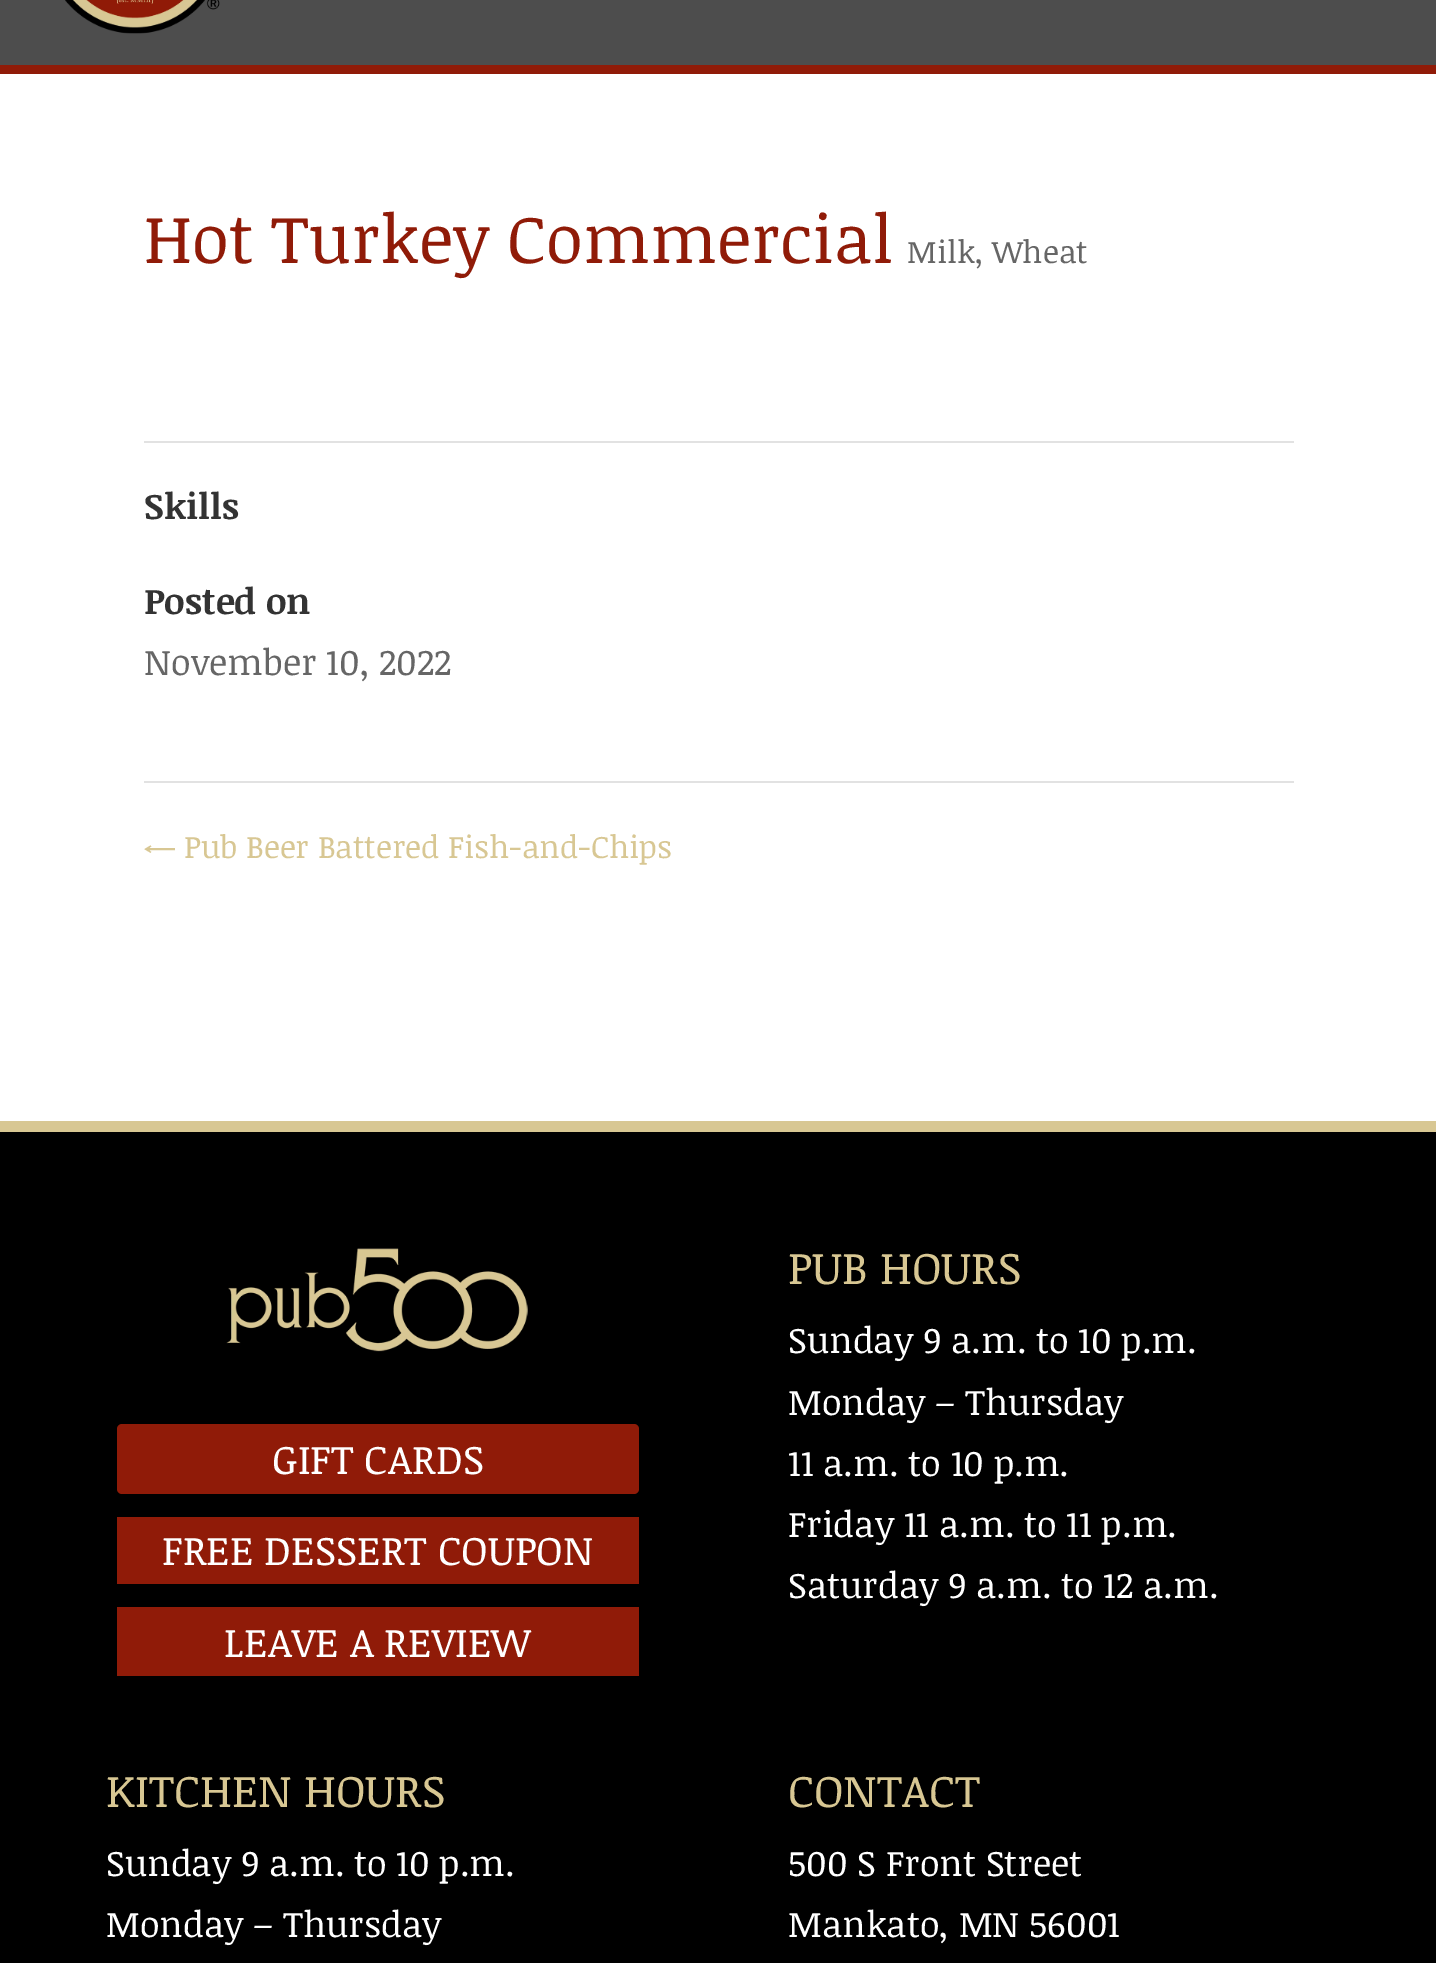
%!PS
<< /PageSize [1436 1963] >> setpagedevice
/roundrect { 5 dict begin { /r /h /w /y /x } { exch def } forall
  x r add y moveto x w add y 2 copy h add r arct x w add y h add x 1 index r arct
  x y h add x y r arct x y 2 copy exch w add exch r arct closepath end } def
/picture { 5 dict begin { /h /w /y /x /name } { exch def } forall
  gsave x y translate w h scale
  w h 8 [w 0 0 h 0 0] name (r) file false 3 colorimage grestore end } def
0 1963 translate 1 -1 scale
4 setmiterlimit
1 setgray
0 0 1436 1963 rectfill
0.302 setgray
0 0 1436 65 rectfill
0.565 0.106 0.031 setrgbcolor
0 65 1436 9 rectfill
(img1.rgb) 65 0 155 34 picture
/NoticiaText-Regular [67.5 0 0 -67.5 0 0] selectfont
144 263 moveto (Hot Turkey Commercial) show
/NoticiaText-Regular [31.5 0 0 -31.5 0 0] selectfont
0.4 setgray
907 263 moveto (Milk, Wheat) show
0.886 setgray
144 441 1150 2 rectfill
144 781 1150 2 rectfill
/NoticiaText-Bold [36 0 0 -36 0 0] selectfont
0.2 setgray
144 519 moveto (Skills) show
144 614 moveto (Posted on) show
/NoticiaText-Regular [36 0 0 -36 0 0] selectfont
0.4 setgray
144 675 moveto (November 10, 2022) show
/NoticiaText-Regular [31.5 0 0 -31.5 0 0] selectfont
0.847 0.78 0.576 setrgbcolor
144 858 moveto (← Pub Beer Battered Fish-and-Chips) show
0 setgray
0 1132 1436 831 rectfill
0.847 0.78 0.576 setrgbcolor
0 1121 1436 11 rectfill
(img2.rgb) 226 1248 302 104 picture
0.565 0.106 0.031 setrgbcolor
117 1424 522 70 5 roundrect fill
/NoticiaText-Regular [40.5 0 0 -40.5 0 0] selectfont
1 setgray
272 1474 moveto (GIFT CARDS) show
0.565 0.106 0.031 setrgbcolor
117 1517 522 67 rectfill
1 setgray
162 1565 moveto (FREE DESSERT COUPON) show
0.565 0.106 0.031 setrgbcolor
117 1607 522 69 rectfill
1 setgray
224 1657 moveto (LEAVE A REVIEW) show
/NoticiaText-Regular [45 0 0 -45 0 0] selectfont
0.847 0.78 0.576 setrgbcolor
788 1284 moveto (PUB HOURS) show
/NoticiaText-Regular [36 0 0 -36 0 0] selectfont
1 setgray
788 1353 moveto (Sunday 9 a.m. to 10 p.m.) show
788 1415 moveto (Monday – Thursday) show
788 1476 moveto (11 a.m. to 10 p.m.) show
788 1537 moveto (Friday 11 a.m. to 11 p.m.) show
788 1598 moveto (Saturday 9 a.m. to 12 a.m.) show
/NoticiaText-Regular [45 0 0 -45 0 0] selectfont
0.847 0.78 0.576 setrgbcolor
106 1807 moveto (KITCHEN HOURS) show
/NoticiaText-Regular [36 0 0 -36 0 0] selectfont
1 setgray
106 1876 moveto (Sunday 9 a.m. to 10 p.m.) show
106 1937 moveto (Monday – Thursday) show
/NoticiaText-Regular [45 0 0 -45 0 0] selectfont
0.847 0.78 0.576 setrgbcolor
788 1807 moveto (CONTACT) show
/NoticiaText-Regular [36 0 0 -36 0 0] selectfont
1 setgray
788 1876 moveto (500 S Front Street) show
788 1937 moveto (Mankato, MN 56001) show
showpage
